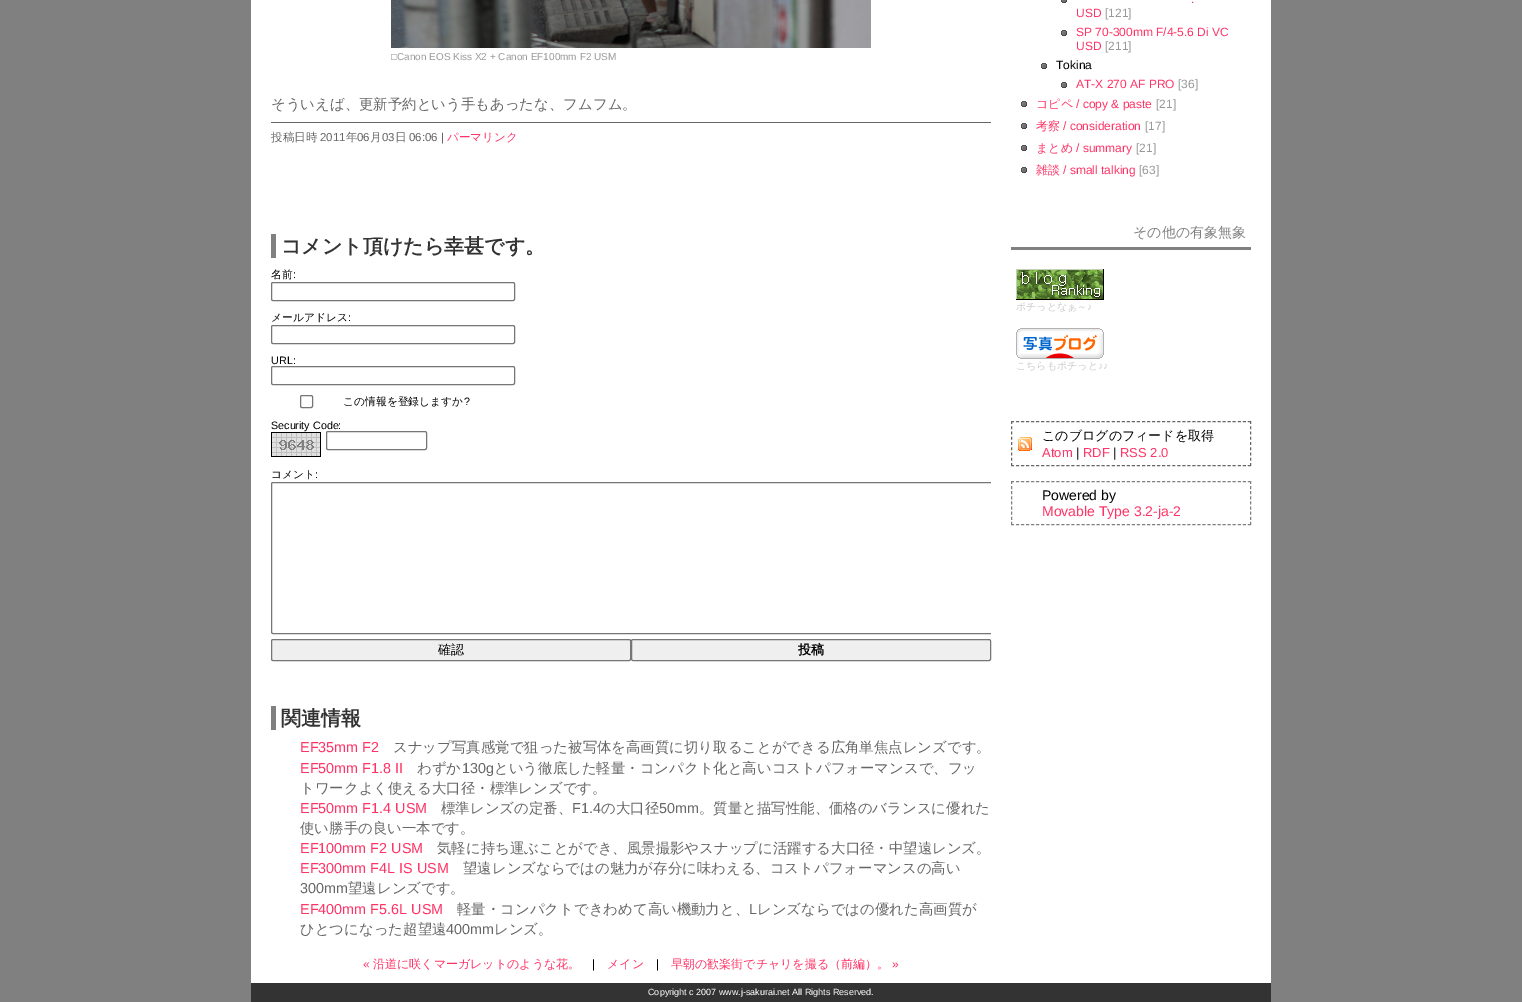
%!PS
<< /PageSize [1522 1002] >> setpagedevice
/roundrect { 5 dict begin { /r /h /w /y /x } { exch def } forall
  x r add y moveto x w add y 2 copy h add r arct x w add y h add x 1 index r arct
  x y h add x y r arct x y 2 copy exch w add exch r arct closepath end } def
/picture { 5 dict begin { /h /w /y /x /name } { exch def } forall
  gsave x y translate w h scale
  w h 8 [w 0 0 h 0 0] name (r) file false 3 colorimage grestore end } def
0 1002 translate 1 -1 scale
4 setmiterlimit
0.502 setgray
0 0 1522 1002 rectfill
1 setgray
251 0 1020 983 rectfill
(img1.rgb) 391 0 480 48 picture
/LiberationSans-Regular [10 0 0 -10 0 0] selectfont
0.6 setgray
391 60 moveto (□Canon EOS Kiss X2 + Canon EF100mm F2 USM) show
/WenQuanYiZenHei-Medium [14.4 0 0 -14.4 0 0] selectfont
0.4 setgray
271 109 moveto (そういえば、更新予約という手もあったな、フムフム。) show
271 122 720 1 rectfill
/WenQuanYiZenHei-Medium [11.5 0 0 -11.5 0 0] selectfont
271 141 moveto (投稿日時) show
/LiberationSans-Regular [11.5 0 0 -11.5 0 0] selectfont
320 141 moveto (2011) show
/WenQuanYiZenHei-Medium [11.5 0 0 -11.5 0 0] selectfont
346 141 moveto (年) show
/LiberationSans-Regular [11.5 0 0 -11.5 0 0] selectfont
357 141 moveto (06) show
/WenQuanYiZenHei-Medium [11.5 0 0 -11.5 0 0] selectfont
370 141 moveto (月) show
/LiberationSans-Regular [11.5 0 0 -11.5 0 0] selectfont
382 141 moveto (03) show
/WenQuanYiZenHei-Medium [11.5 0 0 -11.5 0 0] selectfont
395 141 moveto (日) show
/LiberationSans-Regular [11.5 0 0 -11.5 0 0] selectfont
409 141 moveto (06:06 |) show
/WenQuanYiZenHei-Medium [11.5 0 0 -11.5 0 0] selectfont
1 0.2 0.4 setrgbcolor
447 141 moveto (パーマリンク) show
0.502 setgray
271 234 5 24 rectfill
/WenQuanYiZenHei-Bold [20 0 0 -20 0 0] selectfont
0.2 setgray
281 253 moveto (コメント頂けたら幸甚です。) show
/WenQuanYiZenHei-Medium [10.75 0 0 -10.75 0 0] selectfont
0 setgray
271 278 moveto (名前) show
/LiberationSans-Regular [10.75 0 0 -10.75 0 0] selectfont
293 278 moveto (:) show
0.463 setgray
271.5 282.5 243 18 1.5 roundrect stroke
/WenQuanYiZenHei-Medium [10.75 0 0 -10.75 0 0] selectfont
0 setgray
271 321 moveto (メールアドレス) show
/LiberationSans-Regular [10.75 0 0 -10.75 0 0] selectfont
348 321 moveto (:) show
0.463 setgray
271.5 325.5 243 18 1.5 roundrect stroke
0 setgray
271 364 moveto (URL:) show
0.463 setgray
271.5 366.5 243 18 1.5 roundrect stroke
300.5 395.5 12 12 1.5 roundrect stroke
/WenQuanYiZenHei-Medium [10.75 0 0 -10.75 0 0] selectfont
0 setgray
343 405 moveto (この情報を登録しますか) show
/LiberationSans-Regular [10.75 0 0 -10.75 0 0] selectfont
464 405 moveto (?) show
271 429 moveto (Security Code:) show
(img2.rgb) 271 432 50 25 picture
0.463 setgray
326.5 431.5 100 18 1.5 roundrect stroke
/WenQuanYiZenHei-Medium [10.75 0 0 -10.75 0 0] selectfont
0 setgray
271 478 moveto (コメント) show
/LiberationSans-Regular [10.75 0 0 -10.75 0 0] selectfont
315 478 moveto (:) show
gsave
271 194 720 472 rectclip
0.463 setgray
271.5 482.5 721 151 1.5 roundrect stroke
grestore
0.937 setgray
271.5 639.5 359 21 1.5 roundrect gsave fill grestore
0.463 setgray
stroke
/WenQuanYiZenHei-Medium [13 0 0 -13 0 0] selectfont
0 setgray
438 654 moveto (確認) show
0.937 setgray
631.5 639.5 359 21 1.5 roundrect gsave fill grestore
0.463 setgray
stroke
/WenQuanYiZenHei-Bold [13 0 0 -13 0 0] selectfont
0 setgray
798 654 moveto (投稿) show
0.502 setgray
271 706 5 24 rectfill
/WenQuanYiZenHei-Bold [20 0 0 -20 0 0] selectfont
0.2 setgray
281 725 moveto (関連情報) show
/LiberationSans-Regular [14.4 0 0 -14.4 0 0] selectfont
1 0.2 0.4 setrgbcolor
300 752 moveto (EF35mm F2) show
/WenQuanYiZenHei-Medium [14.4 0 0 -14.4 0 0] selectfont
0.4 setgray
393 752 moveto (スナップ写真感覚で狙った被写体を高画質に切り取ることができる広角単焦点レンズです。) show
/LiberationSans-Regular [14.4 0 0 -14.4 0 0] selectfont
1 0.2 0.4 setrgbcolor
300 773 moveto (EF50mm F1.8 II) show
/WenQuanYiZenHei-Medium [14.4 0 0 -14.4 0 0] selectfont
0.4 setgray
417 773 moveto (わずか) show
/LiberationSans-Regular [14.4 0 0 -14.4 0 0] selectfont
462 773 moveto (130g) show
/WenQuanYiZenHei-Medium [14.4 0 0 -14.4 0 0] selectfont
494 773 moveto (という徹底した軽量・コンパクト化と高いコストパフォーマンスで、フッ) show
300 793 moveto (トワークよく使える大口径・標準レンズです。) show
/LiberationSans-Regular [14.4 0 0 -14.4 0 0] selectfont
1 0.2 0.4 setrgbcolor
300 813 moveto (EF50mm F1.4 USM) show
/WenQuanYiZenHei-Medium [14.4 0 0 -14.4 0 0] selectfont
0.4 setgray
441 813 moveto (標準レンズの定番、) show
/LiberationSans-Regular [14.4 0 0 -14.4 0 0] selectfont
572 813 moveto (F1.4) show
/WenQuanYiZenHei-Medium [14.4 0 0 -14.4 0 0] selectfont
601 813 moveto (の大口径) show
/LiberationSans-Regular [14.4 0 0 -14.4 0 0] selectfont
659 813 moveto (50mm) show
/WenQuanYiZenHei-Medium [14.4 0 0 -14.4 0 0] selectfont
699 813 moveto (。質量と描写性能、価格のバランスに優れた) show
300 833 moveto (使い勝手の良い一本です。) show
/LiberationSans-Regular [14.4 0 0 -14.4 0 0] selectfont
1 0.2 0.4 setrgbcolor
300 853 moveto (EF100mm F2 USM) show
/WenQuanYiZenHei-Medium [14.4 0 0 -14.4 0 0] selectfont
0.4 setgray
437 853 moveto (気軽に持ち運ぶことができ、風景撮影やスナップに活躍する大口径・中望遠レンズ。) show
/LiberationSans-Regular [14.4 0 0 -14.4 0 0] selectfont
1 0.2 0.4 setrgbcolor
300 873 moveto (EF300mm F4L IS USM) show
/WenQuanYiZenHei-Medium [14.4 0 0 -14.4 0 0] selectfont
0.4 setgray
463 873 moveto (望遠レンズならではの魅力が存分に味わえる、コストパフォーマンスの高い) show
/LiberationSans-Regular [14.4 0 0 -14.4 0 0] selectfont
300 893 moveto (300mm) show
/WenQuanYiZenHei-Medium [14.4 0 0 -14.4 0 0] selectfont
348 893 moveto (望遠レンズです。) show
/LiberationSans-Regular [14.4 0 0 -14.4 0 0] selectfont
1 0.2 0.4 setrgbcolor
300 914 moveto (EF400mm F5.6L USM) show
/WenQuanYiZenHei-Medium [14.4 0 0 -14.4 0 0] selectfont
0.4 setgray
457 914 moveto (軽量・コンパクトできわめて高い機動力と、) show
/LiberationSans-Regular [14.4 0 0 -14.4 0 0] selectfont
749 914 moveto (L) show
/WenQuanYiZenHei-Medium [14.4 0 0 -14.4 0 0] selectfont
757 914 moveto (レンズならではの優れた高画質が) show
300 934 moveto (ひとつになった超望遠) show
/LiberationSans-Regular [14.4 0 0 -14.4 0 0] selectfont
446 934 moveto (400mm) show
/WenQuanYiZenHei-Medium [14.4 0 0 -14.4 0 0] selectfont
494 934 moveto (レンズ。) show
/LiberationSans-Regular [12 0 0 -12 0 0] selectfont
1 0.2 0.4 setrgbcolor
363 968 moveto («) show
/WenQuanYiZenHei-Medium [12 0 0 -12 0 0] selectfont
373 968 moveto (沿道に咲くマーガレットのような花。) show
/LiberationSans-Regular [12 0 0 -12 0 0] selectfont
0 setgray
592 968 moveto (|) show
/WenQuanYiZenHei-Medium [12 0 0 -12 0 0] selectfont
1 0.2 0.4 setrgbcolor
607 968 moveto (メイン) show
/LiberationSans-Regular [12 0 0 -12 0 0] selectfont
0 setgray
656 968 moveto (|) show
/WenQuanYiZenHei-Medium [12 0 0 -12 0 0] selectfont
1 0.2 0.4 setrgbcolor
671 968 moveto (早朝の歓楽街でチャリを撮る（前編）。) show
/LiberationSans-Regular [12 0 0 -12 0 0] selectfont
892 968 moveto (») show
(img3.rgb) 1061 0 6 3 picture
1191 3 moveto (.) show
1076 17 moveto (USD) show
0.6 setgray
1105 17 moveto ([121]) show
(img4.rgb) 1061 30 6 6 picture
1 0.2 0.4 setrgbcolor
1076 36 moveto (SP 70-300mm F/4-5.6 Di VC) show
1076 50 moveto (USD) show
0.6 setgray
1105 50 moveto ([211]) show
(img4.rgb) 1041 63 6 6 picture
0 setgray
1056 69 moveto (Tokina) show
(img4.rgb) 1061 82 6 6 picture
1 0.2 0.4 setrgbcolor
1076 88 moveto (AT-X 270 AF PRO) show
0.6 setgray
1178 88 moveto ([36]) show
(img4.rgb) 1021 101 6 6 picture
/WenQuanYiZenHei-Medium [12 0 0 -12 0 0] selectfont
1 0.2 0.4 setrgbcolor
1036 108 moveto (コピペ) show
/LiberationSans-Regular [12 0 0 -12 0 0] selectfont
1076 108 moveto (/ copy & paste) show
0.6 setgray
1156 108 moveto ([21]) show
(img4.rgb) 1021 123 6 6 picture
/WenQuanYiZenHei-Medium [12 0 0 -12 0 0] selectfont
1 0.2 0.4 setrgbcolor
1036 130 moveto (考察) show
/LiberationSans-Regular [12 0 0 -12 0 0] selectfont
1063 130 moveto (/ consideration) show
0.6 setgray
1145 130 moveto ([17]) show
(img4.rgb) 1021 145 6 6 picture
/WenQuanYiZenHei-Medium [12 0 0 -12 0 0] selectfont
1 0.2 0.4 setrgbcolor
1036 152 moveto (まとめ) show
/LiberationSans-Regular [12 0 0 -12 0 0] selectfont
1076 152 moveto (/ summary) show
0.6 setgray
1136 152 moveto ([21]) show
(img4.rgb) 1021 167 6 6 picture
/WenQuanYiZenHei-Medium [12 0 0 -12 0 0] selectfont
1 0.2 0.4 setrgbcolor
1036 174 moveto (雑談) show
/LiberationSans-Regular [12 0 0 -12 0 0] selectfont
1063 174 moveto (/ small talking) show
0.6 setgray
1139 174 moveto ([63]) show
0.502 setgray
1011 247 240 3 rectfill
/WenQuanYiZenHei-Medium [14 0 0 -14 0 0] selectfont
1133 237 moveto (その他の有象無象) show
(img5.rgb) 1016 269 88 31 picture
/WenQuanYiZenHei-Medium [10 0 0 -10 0 0] selectfont
0.8 setgray
1016 310 moveto (ポチっとなぁ～) show
/LiberationSans-Regular [10 0 0 -10 0 0] selectfont
1087 310 moveto (♪) show
(img6.rgb) 1016 328 88 31 picture
/WenQuanYiZenHei-Medium [10 0 0 -10 0 0] selectfont
1016 369 moveto (こちらもポチっと) show
/LiberationSans-Regular [10 0 0 -10 0 0] selectfont
1098 369 moveto (♪♪) show
(img7.rgb) 1018 437 14 14 picture
0.4 setgray
[3 2.04] 0 setdash
newpath 1011 421.5 moveto 1251 421.5 lineto stroke
[3 2.25] 0 setdash
newpath 1250.5 421 moveto 1250.5 466 lineto stroke
[3 2.04] 0 setdash
newpath 1011 465.5 moveto 1251 465.5 lineto stroke
[3 2.25] 0 setdash
newpath 1011.5 421 moveto 1011.5 466 lineto stroke
/WenQuanYiZenHei-Medium [13 0 0 -13 0 0] selectfont
0 setgray
1042 440 moveto (このブログのフィードを取得) show
/LiberationSans-Regular [13 0 0 -13 0 0] selectfont
1 0.2 0.4 setrgbcolor
1042 457 moveto (Atom) show
0 setgray
1076 457 moveto (|) show
1 0.2 0.4 setrgbcolor
1083 457 moveto (RDF) show
0 setgray
1113 457 moveto (|) show
1 0.2 0.4 setrgbcolor
1120 457 moveto (RSS 2.0) show
0.502 setgray
[3 2.04] 0 setdash
newpath 1011 481.5 moveto 1251 481.5 lineto stroke
[3 2.12] 0 setdash
newpath 1250.5 481 moveto 1250.5 525 lineto stroke
[3 2.04] 0 setdash
newpath 1011 524.5 moveto 1251 524.5 lineto stroke
[3 2.12] 0 setdash
newpath 1011.5 481 moveto 1011.5 525 lineto stroke
/LiberationSans-Regular [14 0 0 -14 0 0] selectfont
0 setgray
1042 500 moveto (Powered by) show
1 0.2 0.4 setrgbcolor
1042 516 moveto (Movable Type 3.2-ja-2) show
0.2 setgray
251 983 1020 19 rectfill
/LiberationSans-Regular [9 0 0 -9 0 0] selectfont
1 setgray
648 995 moveto (Copyright c 2007 www.j-sakurai.net All Rights Reserved.) show
showpage
